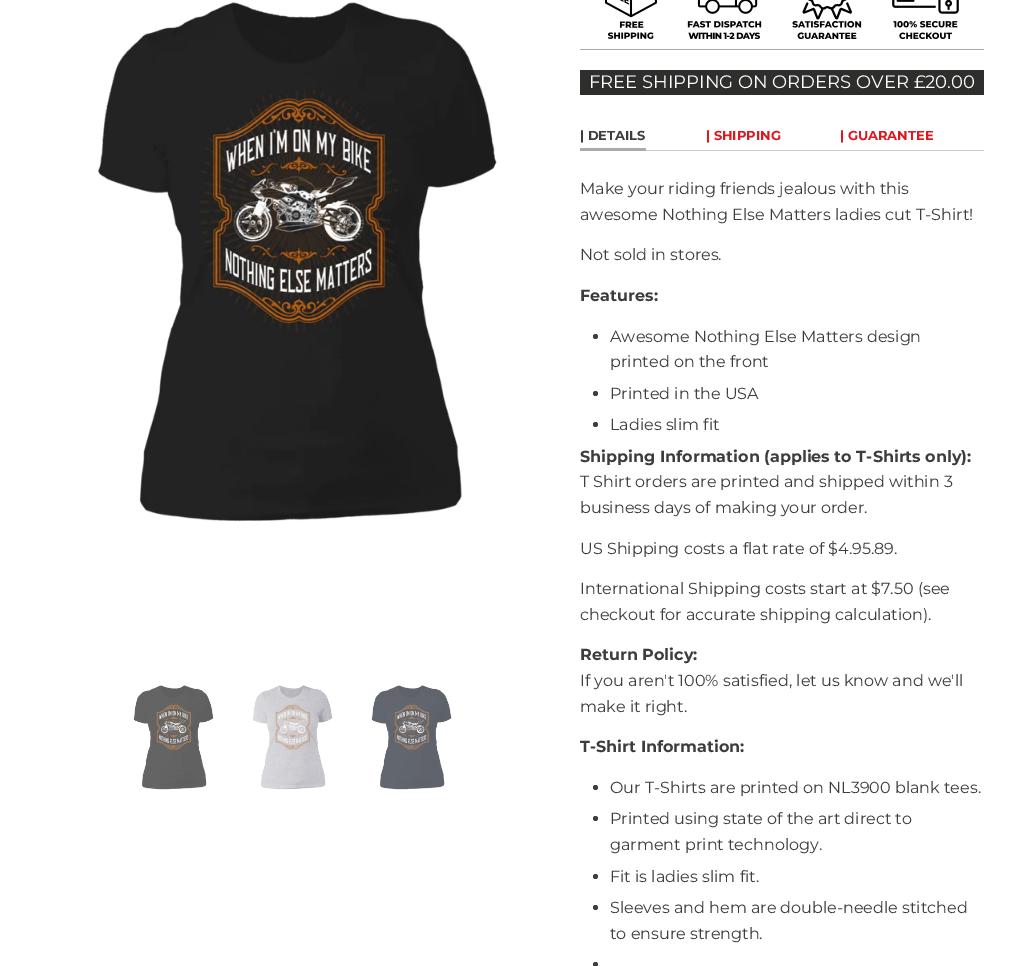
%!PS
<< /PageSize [1019 966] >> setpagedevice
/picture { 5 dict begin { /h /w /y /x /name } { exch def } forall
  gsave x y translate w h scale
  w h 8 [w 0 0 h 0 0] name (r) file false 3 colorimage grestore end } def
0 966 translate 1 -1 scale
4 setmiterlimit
1 setgray
0 0 1019 966 rectfill
(img1.rgb) 97 2 400 520 picture
(img2.rgb) 133 685 81 105 picture
(img3.rgb) 252 685 81 105 picture
(img4.rgb) 371 685 81 105 picture
(img5.rgb) 605 0 52 39 picture
(img6.rgb) 687 0 75 39 picture
(img7.rgb) 792 0 70 39 picture
(img8.rgb) 892 0 67 39 picture
0.667 setgray
580 49 404 1 rectfill
0.18 0.18 0.176 setrgbcolor
580 70 404 25 rectfill
/Montserrat-Regular [18 0 0 -18 0 0] selectfont
1 setgray
589 88 moveto (FREE SHIPPING ON ORDERS OVER £20.00) show
0.8 setgray
646 150 338 1 rectfill
0.667 setgray
580 148 66 3 rectfill
/Montserrat-Bold [13 0 0 -13 0 0] selectfont
0.239 setgray
580 140 moveto (| DETAILS) show
0.863 0.098 0.129 setrgbcolor
706 140 moveto (| SHIPPING) show
840 140 moveto (| GUARANTEE) show
/Montserrat-Regular [16 0 0 -16 0 0] selectfont
0.239 setgray
580 194 moveto (Make your riding friends jealous with this) show
580 220 moveto (awesome Nothing Else Matters ladies cut T-Shirt!) show
580 260 moveto (Not sold in stores.) show
/Montserrat-Bold [16 0 0 -16 0 0] selectfont
580 301 moveto (Features:) show
newpath 595.5 336.5 2.5 0 360 arc closepath fill
/Montserrat-Regular [16 0 0 -16 0 0] selectfont
610 342 moveto (Awesome Nothing Else Matters design) show
610 367 moveto (printed on the front) show
newpath 595.5 393.5 2.5 0 360 arc closepath fill
610 399 moveto (Printed in the USA) show
newpath 595.5 424.5 2.5 0 360 arc closepath fill
610 430 moveto (Ladies slim fit) show
/Montserrat-Bold [16 0 0 -16 0 0] selectfont
580 462 moveto (Shipping Information \(applies to T-Shirts only\):) show
/Montserrat-Regular [16 0 0 -16 0 0] selectfont
580 487 moveto (T Shirt orders are printed and shipped within 3) show
580 513 moveto (business days of making your order.) show
580 554 moveto (US Shipping costs a flat rate of $4.95.89.) show
580 594 moveto (International Shipping costs start at $7.50 \(see) show
580 620 moveto (checkout for accurate shipping calculation\).) show
/Montserrat-Bold [16 0 0 -16 0 0] selectfont
580 660 moveto (Return Policy:) show
/Montserrat-Regular [16 0 0 -16 0 0] selectfont
580 686 moveto (If you aren't 100% satisfied, let us know and we'll) show
580 712 moveto (make it right.) show
/Montserrat-Bold [16 0 0 -16 0 0] selectfont
580 752 moveto (T-Shirt Information:) show
newpath 595.5 787.5 2.5 0 360 arc closepath fill
/Montserrat-Regular [16 0 0 -16 0 0] selectfont
610 793 moveto (Our T-Shirts are printed on NL3900 blank tees.) show
newpath 595.5 818.5 2.5 0 360 arc closepath fill
610 824 moveto (Printed using state of the art direct to) show
610 850 moveto (garment print technology.) show
newpath 595.5 876.5 2.5 0 360 arc closepath fill
610 882 moveto (Fit is ladies slim fit.) show
newpath 595.5 907.5 2.5 0 360 arc closepath fill
610 913 moveto (Sleeves and hem are double-needle stitched) show
610 939 moveto (to ensure strength.) show
newpath 595.5 964.5 2.5 0 360 arc closepath fill
showpage
